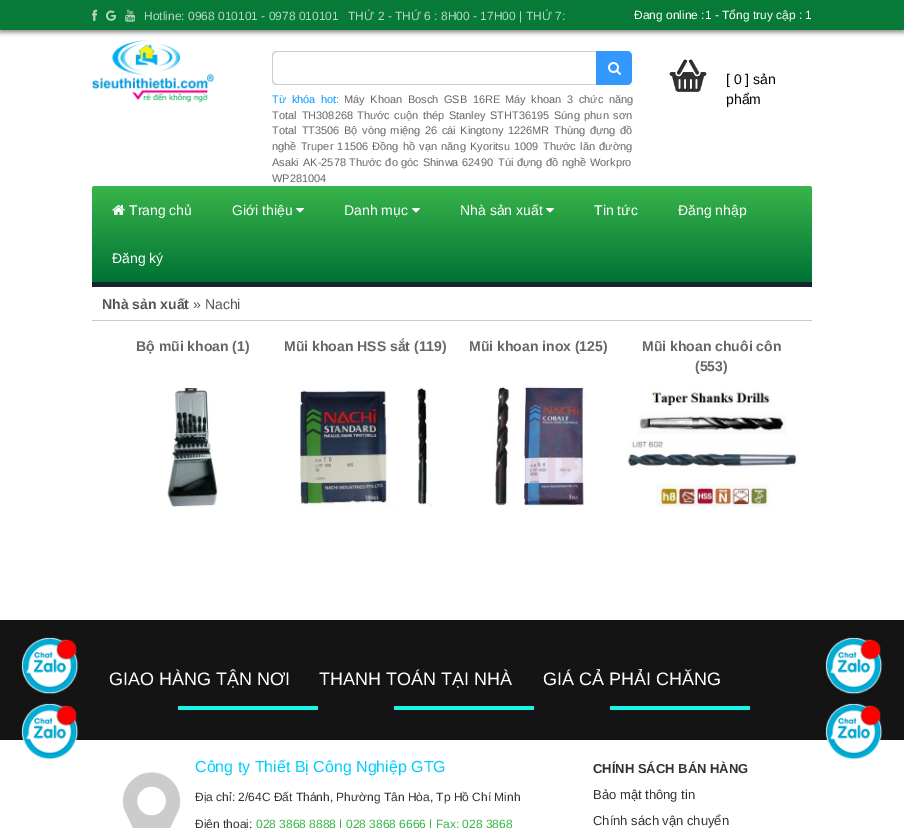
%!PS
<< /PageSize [904 828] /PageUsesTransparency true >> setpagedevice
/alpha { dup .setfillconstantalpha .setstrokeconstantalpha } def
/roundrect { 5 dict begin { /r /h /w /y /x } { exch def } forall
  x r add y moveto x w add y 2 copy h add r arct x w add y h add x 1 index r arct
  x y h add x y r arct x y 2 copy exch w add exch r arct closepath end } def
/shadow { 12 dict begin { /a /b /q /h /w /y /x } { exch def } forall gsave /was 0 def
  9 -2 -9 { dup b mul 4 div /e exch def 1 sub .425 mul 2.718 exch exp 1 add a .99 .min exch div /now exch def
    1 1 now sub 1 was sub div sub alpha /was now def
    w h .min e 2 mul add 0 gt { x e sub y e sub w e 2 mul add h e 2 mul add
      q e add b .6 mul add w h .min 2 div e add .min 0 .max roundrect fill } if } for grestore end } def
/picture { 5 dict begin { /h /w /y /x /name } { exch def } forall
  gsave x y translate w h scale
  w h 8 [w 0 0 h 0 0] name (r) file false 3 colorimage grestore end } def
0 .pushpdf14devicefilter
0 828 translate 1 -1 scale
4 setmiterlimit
1 setgray
0 0 904 828 rectfill
(img4.rgb) 92 40 122 63 picture
0 setgray
0 2 904 30 0 2.5 0.5 shadow
0.027 0.478 0.22 setrgbcolor
0 0 904 30 rectfill
(img1.rgb) 92 9 6 12 picture
(img2.rgb) 106 10 11 11 picture
(img3.rgb) 125 9 11 13 picture
/LiberationSans-Regular [12 0 0 -12 0 0] selectfont
0.71 0.843 0.765 setrgbcolor
144 20 moveto (Hotline: 0968 010101 - 0978 010101) show
348 20 moveto (THỨ 2 - THỨ 6 : 8H00 - 17H00 | THỨ 7:) show
1 setgray
634 19 moveto (Đang online :1 - Tổng truy cập : 1) show
(img5.rgb) 669 59 38 33 picture
/LiberationSans-Regular [14 0 0 -14 0 0] selectfont
0 setgray
726 84 moveto ([ 0 ] sản) show
726 104 moveto (phẩm) show
0.8 setgray
newpath 277 51 moveto 596 51 lineto 596 85 lineto 277 85 lineto 274 85 272 83 272 80 curveto 272 56 lineto 272 53 274 51 277 51 curveto closepath 277 52 moveto 596 52 lineto 596 84 lineto 277 84 lineto 275 84 273 82 273 80 curveto 273 56 lineto 273 54 275 52 277 52 curveto closepath eofill
0.2 0.6 1 setrgbcolor
newpath 596 51 moveto 627 51 lineto 630 51 632 53 632 56 curveto 632 80 lineto 632 83 630 85 627 85 curveto 596 85 lineto closepath fill
(img6.rgb) 608 62 13 13 picture
/LiberationSans-Regular [11 0 0 -11 0 0] selectfont
0 0.6 1 setrgbcolor
272 103 moveto 2.5 0 32 (Từ khóa hot:) widthshow
0.4 setgray
344 103 moveto 2.5 0 32 (Máy Khoan Bosch GSB 16RE) widthshow
505 103 moveto 2.5 0 32 (Máy khoan 3 chức năng) widthshow
272 119 moveto 2 0 32 (Total TH308268) widthshow
357 119 moveto 1.5 0 32 (Thước cuộn thép Stanley STHT36195) widthshow
554 119 moveto 1.5 0 32 (Súng phun sơn) widthshow
272 134 moveto 2 0 32 (Total TT3506) widthshow
344 134 moveto 1.5 0 32 (Bộ vòng miệng 26 cái Kingtony 1226MR) widthshow
554 134 moveto 1.5 0 32 (Thùng đựng đồ) widthshow
272 150 moveto 1.25 0 32 (nghề Truper 11506) widthshow
372 150 moveto 1.25 0 32 (Đồng hồ vạn năng Kyoritsu 1009) widthshow
543 150 moveto 1.25 0 32 (Thước lăn đường) widthshow
272 166 moveto 1 0 32 (Asaki AK-2578) widthshow
349 166 moveto 0.5 0 32 (Thước đo góc Shinwa 62490) widthshow
498 166 moveto 0.5 0 32 (Túi đựng đồ nghề Workpro) widthshow
272 182 moveto (WP281004) show
gsave newpath 97 186 moveto 807 186 lineto 810 186 812 188 812 191 curveto 812 282 lineto 92 282 lineto 92 191 lineto 92 188 94 186 97 186 curveto closepath clip newpath
<< /ShadingType 2 /ColorSpace /DeviceRGB /Coords [452 186 452 282] /Extend [true true] /Function << /FunctionType 2 /Domain [0 1] /C0 [0.224 0.71 0.29] /C1 [0 0.447 0.212] /N 1 >> >> shfill grestore
0.082 0.149 0.188 setrgbcolor
92 282 720 5 rectfill
(img7.rgb) 112 205 13 10 picture
/LiberationSans-Regular [14 0 0 -14 0 0] selectfont
1 setgray
129 215 moveto (Trang chủ) show
232 215 moveto (Giới thiệu) show
(img8.rgb) 296 208 8 5 picture
344 215 moveto (Danh mục) show
(img8.rgb) 412 208 8 5 picture
460 215 moveto (Nhà sản xuất) show
(img8.rgb) 546 208 8 5 picture
594 215 moveto (Tin tức) show
678 215 moveto (Đăng nhập) show
112 263 moveto (Đăng ký) show
0.8 setgray
92 320 720 1 rectfill
/LiberationSans-Bold [14 0 0 -14 0 0] selectfont
0.333 setgray
102 309 moveto (Nhà sản xuất) show
/LiberationSans-Regular [14 0 0 -14 0 0] selectfont
193 309 moveto (» Nachi) show
/LiberationSans-Bold [14 0 0 -14 0 0] selectfont
0.4 setgray
136 351 moveto (Bộ mũi khoan \(1\)) show
(img9.rgb) 167 388 51 119 picture
284 351 moveto (Mũi khoan HSS sắt \(119\)) show
(img10.rgb) 298 387 135 120 picture
469 351 moveto (Mũi khoan inox \(125\)) show
(img11.rgb) 494 386 92 120 picture
642 351 moveto (Mũi khoan chuôi côn) show
695 371 moveto (\(553\)) show
(img12.rgb) 627 390 171 117 picture
0.078 setgray
0 620 904 120 rectfill
(img13.rgb) 21 637 58 57 picture
(img14.rgb) 21 703 58 57 picture
/LiberationSans-Regular [18 0 0 -18 0 0] selectfont
1 setgray
109 685 moveto (GIAO HÀNG TẬN NƠI) show
0.098 0.965 0.91 setrgbcolor
178 706 140 4 rectfill
1 setgray
319 685 moveto (THANH TOÁN TẠI NHÀ) show
0.098 0.965 0.91 setrgbcolor
394 706 140 4 rectfill
1 setgray
543 685 moveto (GIÁ CẢ PHẢI CHĂNG) show
0.098 0.965 0.91 setrgbcolor
610 706 140 4 rectfill
(img13.rgb) 825 637 58 57 picture
(img14.rgb) 825 703 58 57 picture
(img15.rgb) 123 772 58 56 picture
/LiberationSans-Regular [16 0 0 -16 0 0] selectfont
0 0.8 1 setrgbcolor
195 772 moveto (Công ty Thiết Bị Công Nghiệp GTG) show
/LiberationSans-Regular [12 0 0 -12 0 0] selectfont
0.2 setgray
195 801 moveto (Địa chỉ: 2/64C Đất Thánh, Phường Tân Hòa, Tp Hồ Chí Minh) show
195 828 moveto (Điện thoại:) show
0.224 0.71 0.29 setrgbcolor
256 828 moveto (028 3868 8888 | 028 3868 6666 | Fax: 028 3868) show
/LiberationSans-Bold [13 0 0 -13 0 0] selectfont
0.2 setgray
593 773 moveto (CHÍNH SÁCH BÁN HÀNG) show
/LiberationSans-Regular [13 0 0 -13 0 0] selectfont
593 799 moveto (Bảo mật thông tin) show
593 825 moveto (Chính sách vận chuyển) show
.poppdf14devicefilter showpage
